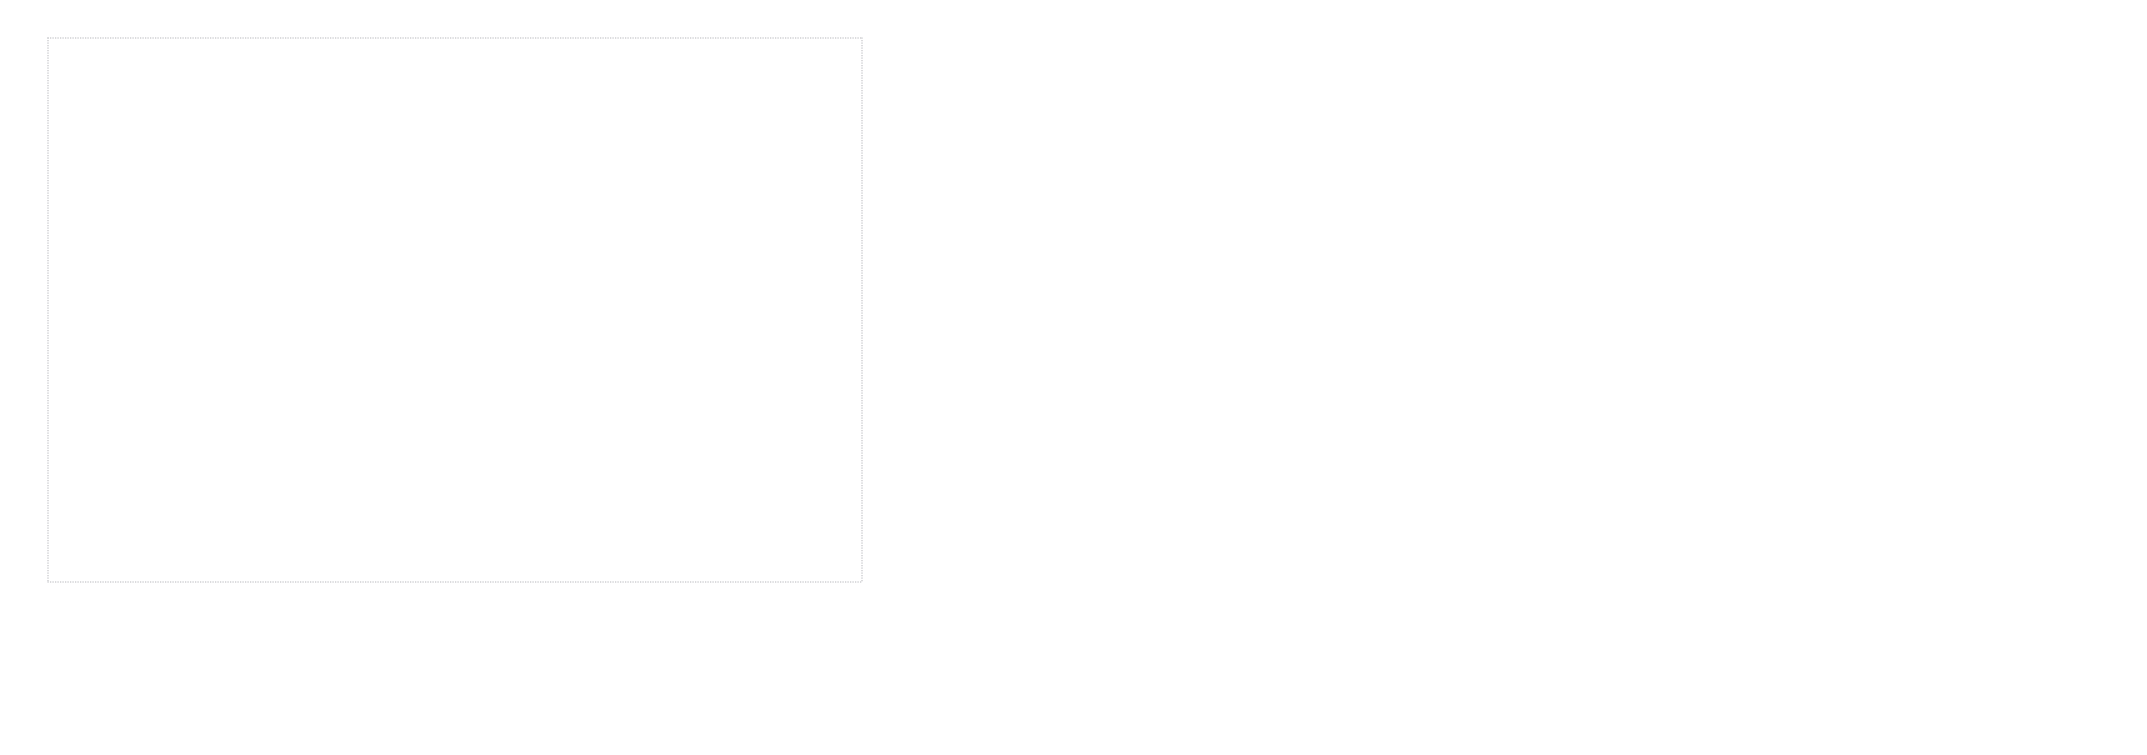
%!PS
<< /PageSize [2147 755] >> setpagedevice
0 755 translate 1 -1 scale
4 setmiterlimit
1 setgray
0 0 2147 755 rectfill
0.808 0.812 0.824 setrgbcolor
1.2 setlinewidth
[1.25 1.25] 0 setdash
newpath 47.5 38 moveto 862.5 38 lineto stroke
newpath 862 37.5 moveto 862 582.5 lineto stroke
newpath 47.5 582 moveto 862.5 582 lineto stroke
newpath 48 37.5 moveto 48 582.5 lineto stroke
showpage
